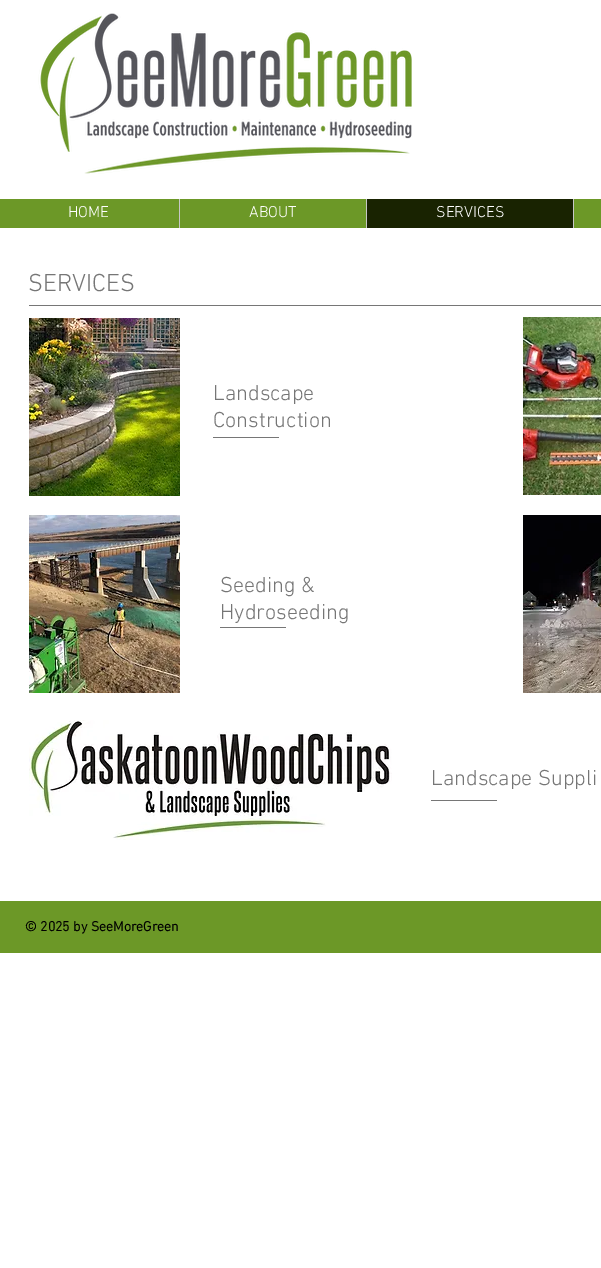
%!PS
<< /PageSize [601 1268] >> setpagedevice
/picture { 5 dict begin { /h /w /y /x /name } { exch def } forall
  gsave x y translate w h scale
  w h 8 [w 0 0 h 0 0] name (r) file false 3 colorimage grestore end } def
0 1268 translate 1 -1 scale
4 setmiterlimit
1 setgray
0 0 601 1268 rectfill
(img1.rgb) 38 13 374 161 picture
0.424 0.596 0.153 setrgbcolor
0 199 601 29 rectfill
/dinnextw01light-Light [16 0 0 -16 0 0] selectfont
1 setgray
68 217 moveto (HOME) show
0.78 setgray
179 199 1 29 rectfill
1 setgray
249 217 moveto (ABOUT) show
0.098 0.137 0.004 setrgbcolor
367 199 206 29 rectfill
0.78 setgray
366 199 1 29 rectfill
1 setgray
436 217 moveto (SERVICES) show
0.78 setgray
573 199 1 29 rectfill
/dinnextw01light-Light [25 0 0 -25 0 0] selectfont
0.463 setgray
28 291 moveto (SERVICES) show
29 305 572 1 rectfill
(img2.rgb) 29 318 151 178 picture
/dinnextw01light-Light [22 0 0 -22 0 0] selectfont
213 400 moveto (Landscape) show
213 427 moveto (Construction) show
(img3.rgb) 523 317 78 178 picture
213 437 66 1 rectfill
(img4.rgb) 29 515 151 178 picture
220 592 moveto (Seeding &) show
220 619 moveto (Hydroseeding) show
(img5.rgb) 523 515 78 178 picture
220 627 66 1 rectfill
(img6.rgb) 29 720 363 120 picture
431 785 moveto (Landscape Suppli) show
431 800 66 1 rectfill
0.424 0.596 0.153 setrgbcolor
0 901 601 52 rectfill
/dinnextw01light-Bold [14 0 0 -14 0 0] selectfont
0 setgray
25 931 moveto (© 2025 by SeeMoreGreen) show
showpage
